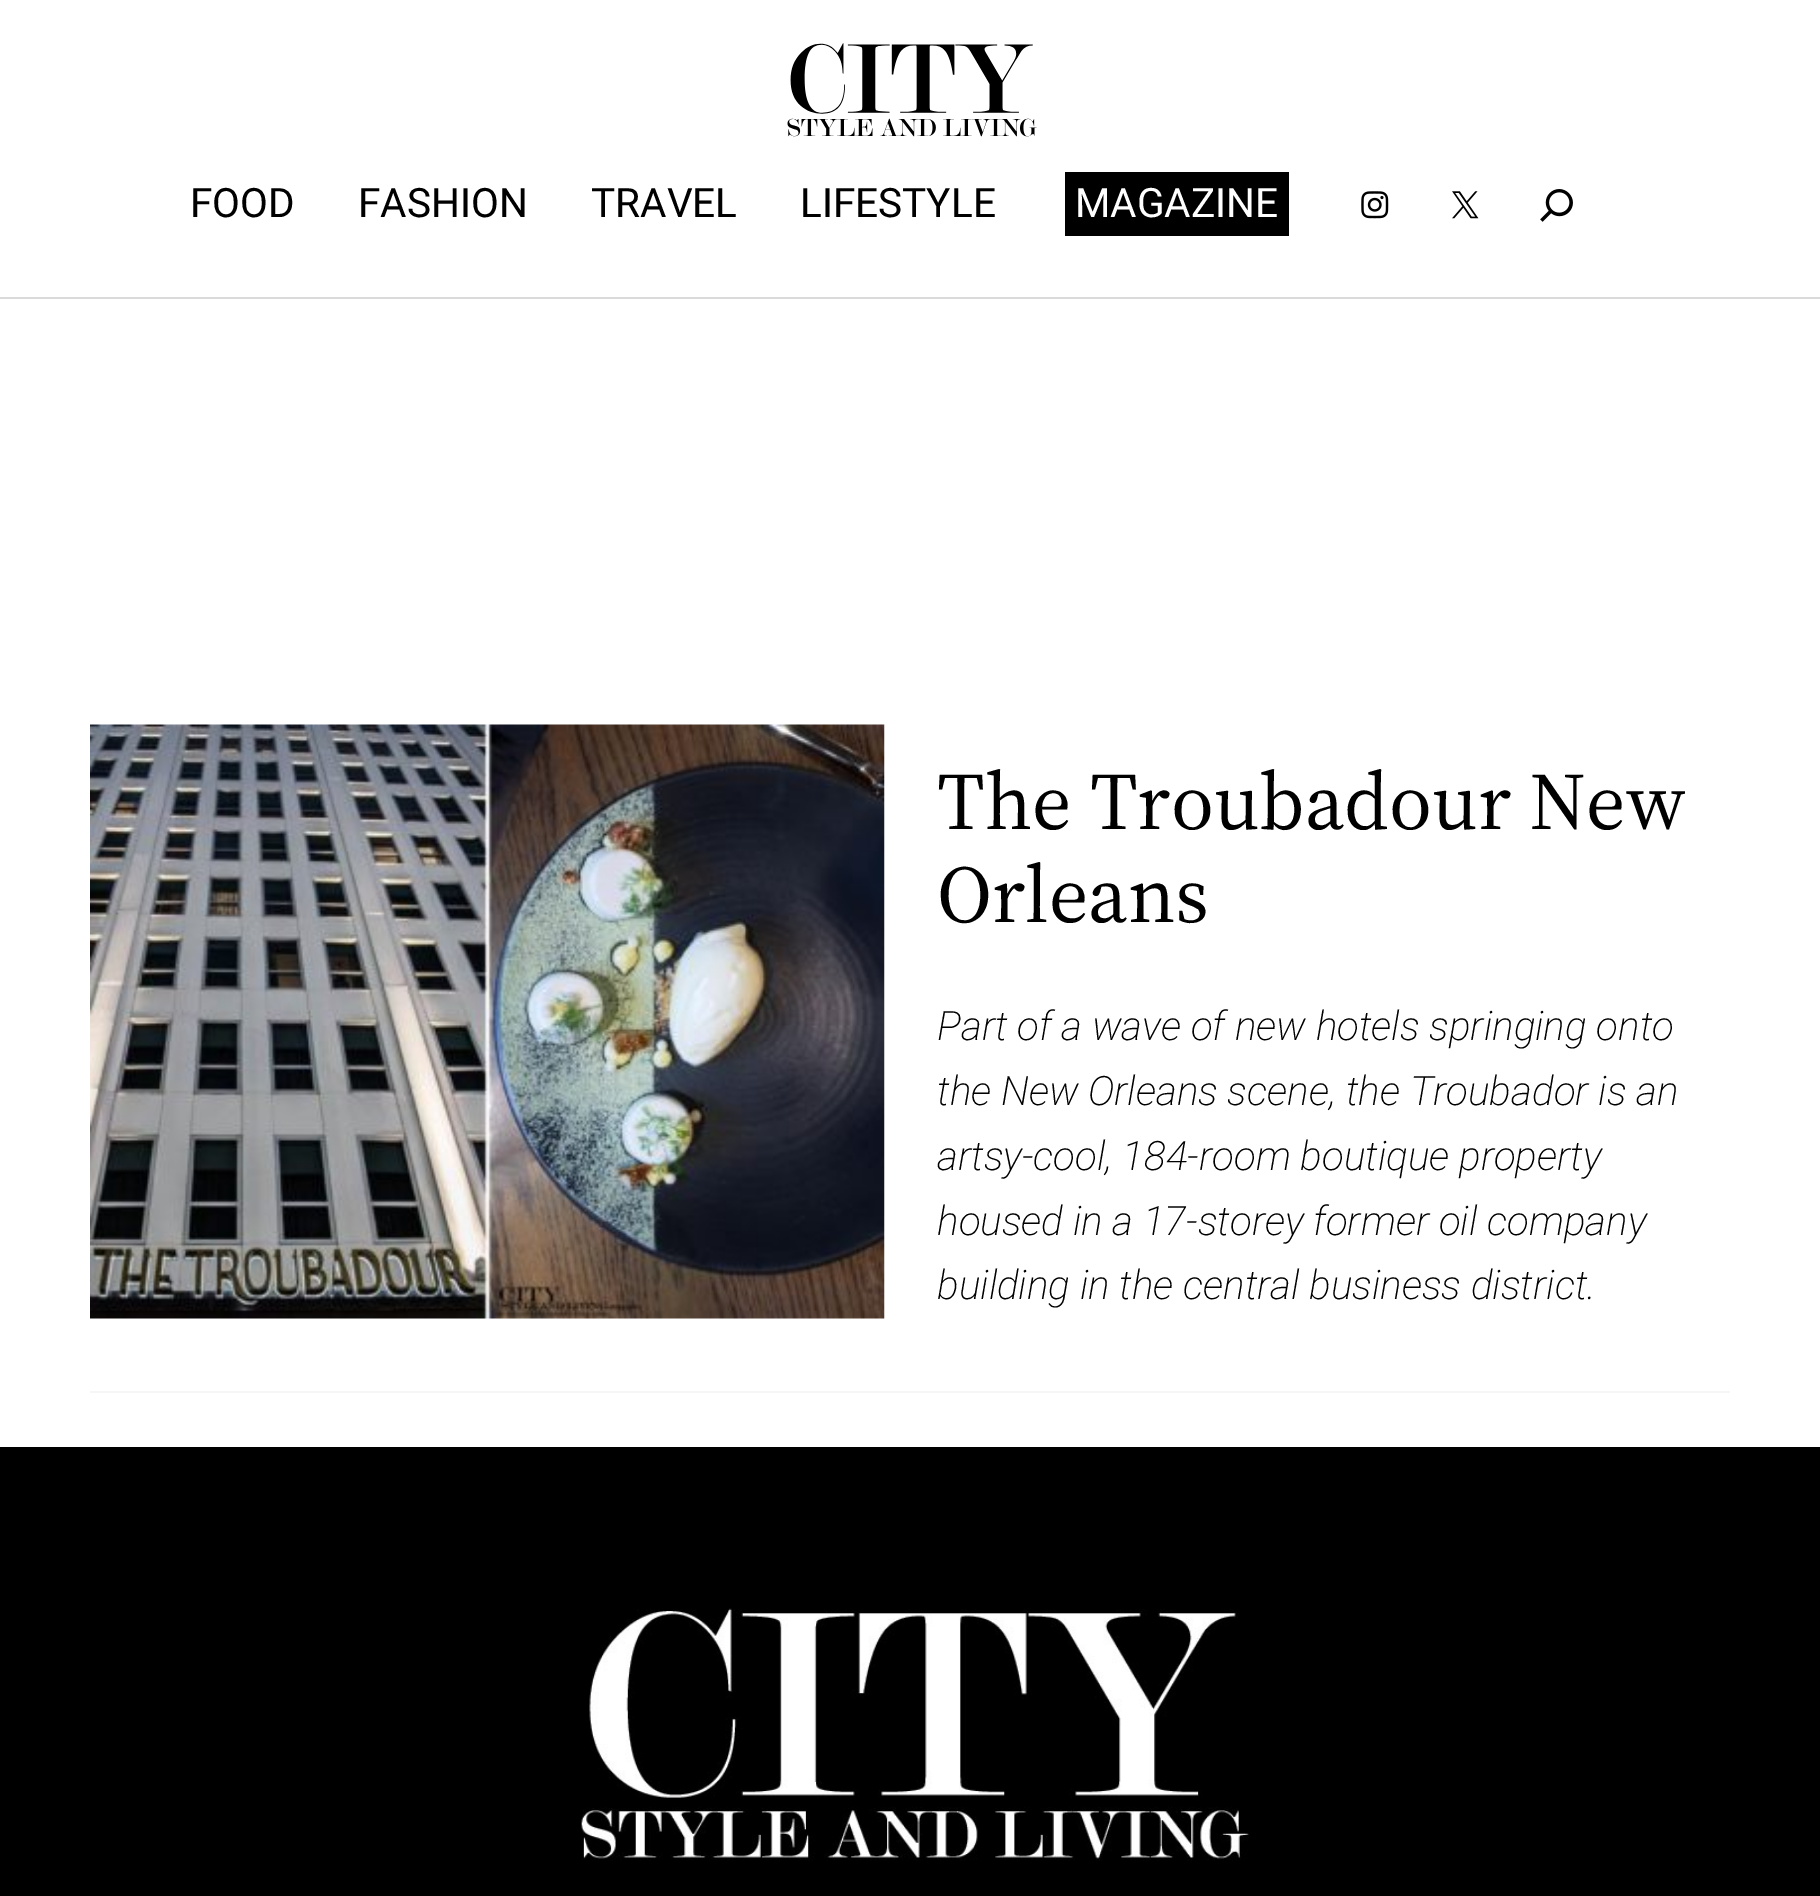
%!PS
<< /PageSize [1820 1896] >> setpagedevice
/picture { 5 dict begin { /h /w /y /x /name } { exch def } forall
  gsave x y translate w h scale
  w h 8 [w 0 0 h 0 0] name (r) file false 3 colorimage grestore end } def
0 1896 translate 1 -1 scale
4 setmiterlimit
1 setgray
0 0 1820 1896 rectfill
0.855 setgray
0 297 1820 2 rectfill
(img1.rgb) 787 43 250 94 picture
/Roboto-Regular [40.5 0 0 -40.5 0 0] selectfont
0 setgray
190 217 moveto (FOOD) show
358 217 moveto (FASHION) show
591 217 moveto (TRAVEL) show
800 217 moveto (LIFESTYLE) show
1065 172 224 64 rectfill
1 setgray
1075 217 moveto (MAGAZINE) show
(img2.rgb) 1361 191 28 28 picture
(img3.rgb) 1452 191 27 28 picture
(img4.rgb) 1540 189 33 33 picture
(img5.rgb) 90 724 795 595 picture
/SourceSerif4-Regular [81 0 0 -81 0 0] selectfont
0 setgray
937 829 moveto (The Troubadour New) show
937 922 moveto (Orleans) show
/Roboto-ExtraLightItalic [40.5 0 0 -40.5 0 0] selectfont
937 1040 moveto (Part of a wave of new hotels springing onto) show
937 1105 moveto (the New Orleans scene, the Troubador is an) show
937 1170 moveto (artsy-cool, 184-room boutique property) show
937 1235 moveto (housed in a 17-storey former oil company) show
937 1299 moveto (building in the central business district.) show
0.965 setgray
90 1391 1640 2 rectfill
0 setgray
0 1447 1820 449 rectfill
(img6.rgb) 581 1608 668 253 picture
showpage
